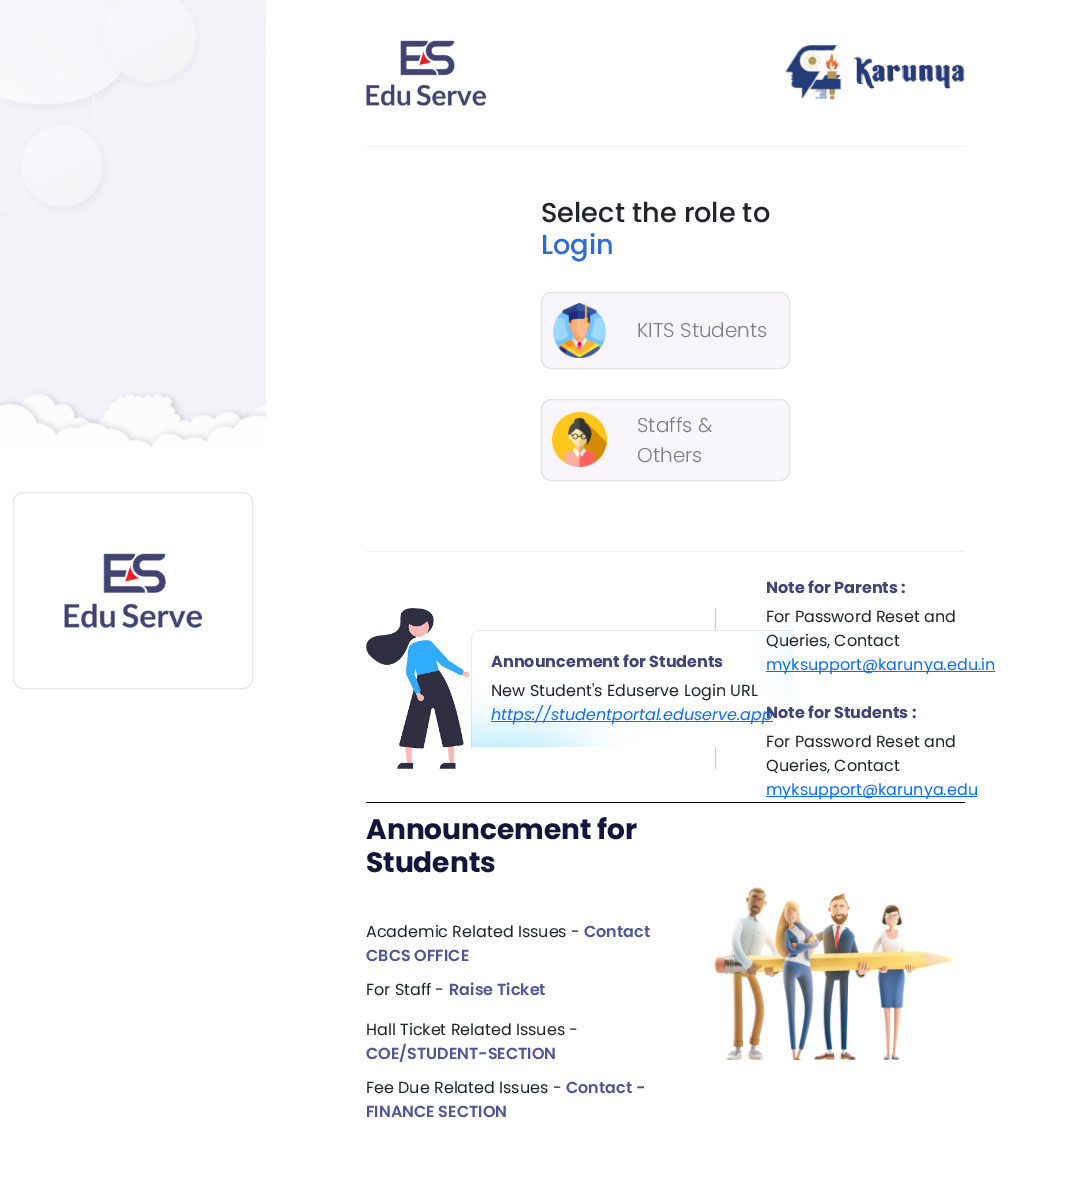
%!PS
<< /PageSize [1065 1181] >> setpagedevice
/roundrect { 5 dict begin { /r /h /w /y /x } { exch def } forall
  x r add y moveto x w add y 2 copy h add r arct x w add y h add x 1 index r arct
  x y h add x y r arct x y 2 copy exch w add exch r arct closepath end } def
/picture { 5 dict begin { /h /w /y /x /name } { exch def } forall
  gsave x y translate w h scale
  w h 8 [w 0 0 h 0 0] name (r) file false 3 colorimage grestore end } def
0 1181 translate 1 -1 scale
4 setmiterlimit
1 setgray
0 0 1065 1181 rectfill
(img1.rgb) 0 0 267 448 picture
0.898 setgray
13.5 492.5 239 196 9.5 roundrect stroke
(img2.rgb) 64 553 139 75 picture
0.941 setgray
366 146 599 1 rectfill
(img3.rgb) 366 40 120 66 picture
(img4.rgb) 785 45 180 55 picture
366 551 599 1 rectfill
/Poppins-Medium [27.25 0 0 -27.25 0 0] selectfont
0.129 0.145 0.161 setrgbcolor
541 222 moveto (Select the role to) show
0.188 0.427 0.827 setrgbcolor
541 254 moveto (Login) show
0.973 0.965 0.98 setrgbcolor
541.5 292.5 248 76 9.5 roundrect gsave fill grestore
0.89 0.886 0.894 setrgbcolor
stroke
(img5.rgb) 553 303 54 55 picture
/Poppins-Light [20 0 0 -20 0 0] selectfont
0.498 0.498 0.502 setrgbcolor
637 337 moveto (KITS Students) show
0.973 0.965 0.98 setrgbcolor
541.5 399.5 248 81 9.5 roundrect gsave fill grestore
0.89 0.886 0.894 setrgbcolor
stroke
(img6.rgb) 552 412 55 55 picture
0.498 0.498 0.502 setrgbcolor
637 432 moveto (Staffs &) show
637 462 moveto (Others) show
0 setgray
366 802 599 1 rectfill
0.792 setgray
715 608 1 161 rectfill
(img7.rgb) 366 608 104 161 picture
(img8.rgb) 471 630 322 117 picture
/Poppins-Bold [16 0 0 -16 0 0] selectfont
0.259 0.267 0.455 setrgbcolor
491 667 moveto (Announcement for Students) show
/Poppins-Regular [16 0 0 -16 0 0] selectfont
0.129 0.145 0.161 setrgbcolor
491 696 moveto (New Student's Eduserve Login URL) show
0.051 0.431 0.992 setrgbcolor
491 721 282 1 rectfill
/Poppins-Italic [16 0 0 -16 0 0] selectfont
491 720 moveto (https://studentportal.eduserve.app) show
/Poppins-Bold [16 0 0 -16 0 0] selectfont
0.259 0.267 0.455 setrgbcolor
766 593 moveto (Note for Parents :) show
/Poppins-Regular [16 0 0 -16 0 0] selectfont
0.129 0.145 0.161 setrgbcolor
766 622 moveto (For Password Reset and) show
766 646 moveto (Queries, Contact) show
0.051 0.431 0.992 setrgbcolor
766 671 229 1 rectfill
766 670 moveto (myksupport@karunya.edu.in) show
/Poppins-Bold [16 0 0 -16 0 0] selectfont
0.259 0.267 0.455 setrgbcolor
766 718 moveto (Note for Students :) show
/Poppins-Regular [16 0 0 -16 0 0] selectfont
0.129 0.145 0.161 setrgbcolor
766 747 moveto (For Password Reset and) show
766 771 moveto (Queries, Contact) show
0.051 0.431 0.992 setrgbcolor
766 796 211 1 rectfill
766 795 moveto (myksupport@karunya.edu) show
/Poppins-Bold [28 0 0 -28 0 0] selectfont
0.078 0.082 0.227 setrgbcolor
366 839 moveto (Announcement for) show
366 872 moveto (Students) show
/Poppins-Regular [16 0 0 -16 0 0] selectfont
0.129 0.145 0.161 setrgbcolor
366 937 moveto (Academic Related Issues -) show
/Poppins-SemiBold [16 0 0 -16 0 0] selectfont
0.322 0.333 0.584 setrgbcolor
584 937 moveto (Contact) show
366 961 moveto (CBCS OFFICE) show
/Poppins-Regular [16 0 0 -16 0 0] selectfont
0.129 0.145 0.161 setrgbcolor
366 995 moveto (For Staff -) show
/Poppins-SemiBold [16 0 0 -16 0 0] selectfont
0.322 0.333 0.584 setrgbcolor
449 995 moveto (Raise Ticket) show
/Poppins-Regular [16 0 0 -16 0 0] selectfont
0.129 0.145 0.161 setrgbcolor
366 1035 moveto (Hall Ticket Related Issues -) show
/Poppins-SemiBold [16 0 0 -16 0 0] selectfont
0.322 0.333 0.584 setrgbcolor
366 1059 moveto (COE/STUDENT-SECTION) show
/Poppins-Regular [16 0 0 -16 0 0] selectfont
0.129 0.145 0.161 setrgbcolor
366 1093 moveto (Fee Due Related Issues -) show
/Poppins-SemiBold [16 0 0 -16 0 0] selectfont
0.322 0.333 0.584 setrgbcolor
566 1093 moveto (Contact -) show
366 1117 moveto (FINANCE SECTION) show
(img9.rgb) 714 887 239 173 picture
showpage
